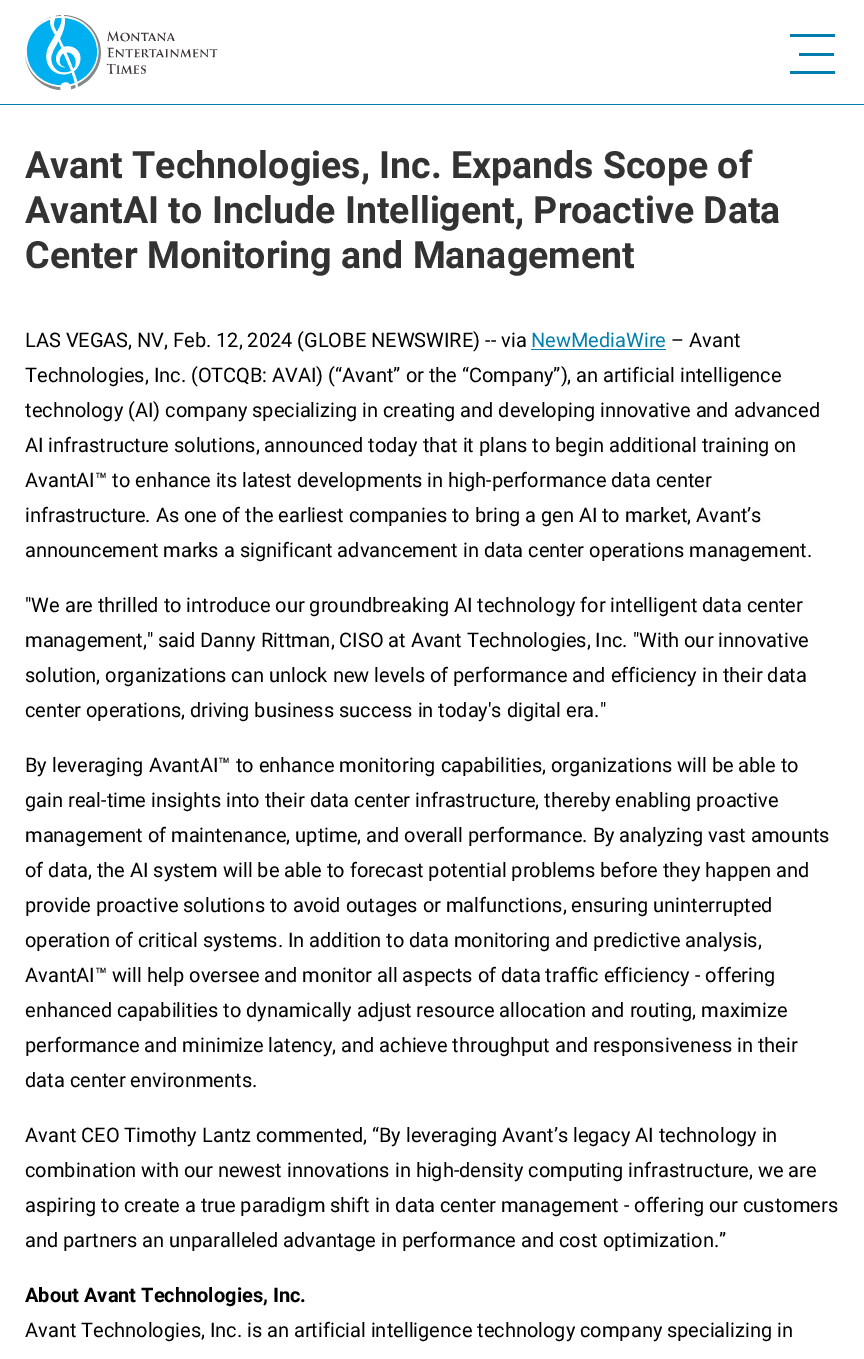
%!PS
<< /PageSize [864 1359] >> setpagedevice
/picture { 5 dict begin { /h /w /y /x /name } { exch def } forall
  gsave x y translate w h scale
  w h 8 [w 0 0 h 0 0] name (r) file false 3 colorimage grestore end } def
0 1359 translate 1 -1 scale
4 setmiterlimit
1 setgray
0 0 864 1359 rectfill
(img1.rgb) 25 15 193 75 picture
0 0.498 0.682 setrgbcolor
790 34 45 3 rectfill
799 53 35 3 rectfill
790 71 45 3 rectfill
0 104 864 1 rectfill
/Roboto-Bold [37.5 0 0 -37.5 0 0] selectfont
0.2 setgray
25 178 moveto (Avant Technologies, Inc. Expands Scope of) show
25 223 moveto (AvantAI to Include Intelligent, Proactive Data) show
25 268 moveto (Center Monitoring and Management) show
/Roboto-Regular [20 0 0 -20 0 0] selectfont
0 setgray
25 347 moveto (LAS VEGAS, NV, Feb. 12, 2024 \(GLOBE NEWSWIRE\) -- via) show
0 0.498 0.682 setrgbcolor
531 347 moveto (NewMediaWire) show
531 349 135 1 rectfill
0 setgray
671 347 moveto (– Avant) show
25 382 moveto (Technologies, Inc. \(OTCQB: AVAI\) \(“Avant” or the “Company”\), an artificial intelligence) show
25 417 moveto (technology \(AI\) company specializing in creating and developing innovative and advanced) show
25 452 moveto (AI infrastructure solutions, announced today that it plans to begin additional training on) show
25 487 moveto (AvantAI™ to enhance its latest developments in high-performance data center) show
25 522 moveto (infrastructure. As one of the earliest companies to bring a gen AI to market, Avant’s) show
25 557 moveto (announcement marks a significant advancement in data center operations management.) show
25 612 moveto ("We are thrilled to introduce our groundbreaking AI technology for intelligent data center) show
25 647 moveto (management," said Danny Rittman, CISO at Avant Technologies, Inc. "With our innovative) show
25 682 moveto (solution, organizations can unlock new levels of performance and efficiency in their data) show
25 717 moveto (center operations, driving business success in today's digital era.") show
25 772 moveto (By leveraging AvantAI™ to enhance monitoring capabilities, organizations will be able to) show
25 807 moveto (gain real-time insights into their data center infrastructure, thereby enabling proactive) show
25 842 moveto (management of maintenance, uptime, and overall performance. By analyzing vast amounts) show
25 877 moveto (of data, the AI system will be able to forecast potential problems before they happen and) show
25 912 moveto (provide proactive solutions to avoid outages or malfunctions, ensuring uninterrupted) show
25 947 moveto (operation of critical systems. In addition to data monitoring and predictive analysis,) show
25 982 moveto (AvantAI™ will help oversee and monitor all aspects of data traffic efficiency - offering) show
25 1017 moveto (enhanced capabilities to dynamically adjust resource allocation and routing, maximize) show
25 1052 moveto (performance and minimize latency, and achieve throughput and responsiveness in their) show
25 1087 moveto (data center environments.) show
25 1142 moveto (Avant CEO Timothy Lantz commented, “By leveraging Avant’s legacy AI technology in) show
25 1177 moveto (combination with our newest innovations in high-density computing infrastructure, we are) show
25 1212 moveto (aspiring to create a true paradigm shift in data center management - offering our customers) show
25 1247 moveto (and partners an unparalleled advantage in performance and cost optimization.”) show
/Roboto-Bold [20 0 0 -20 0 0] selectfont
25 1302 moveto (About Avant Technologies, Inc.) show
/Roboto-Regular [20 0 0 -20 0 0] selectfont
25 1337 moveto (Avant Technologies, Inc. is an artificial intelligence technology company specializing in) show
showpage
